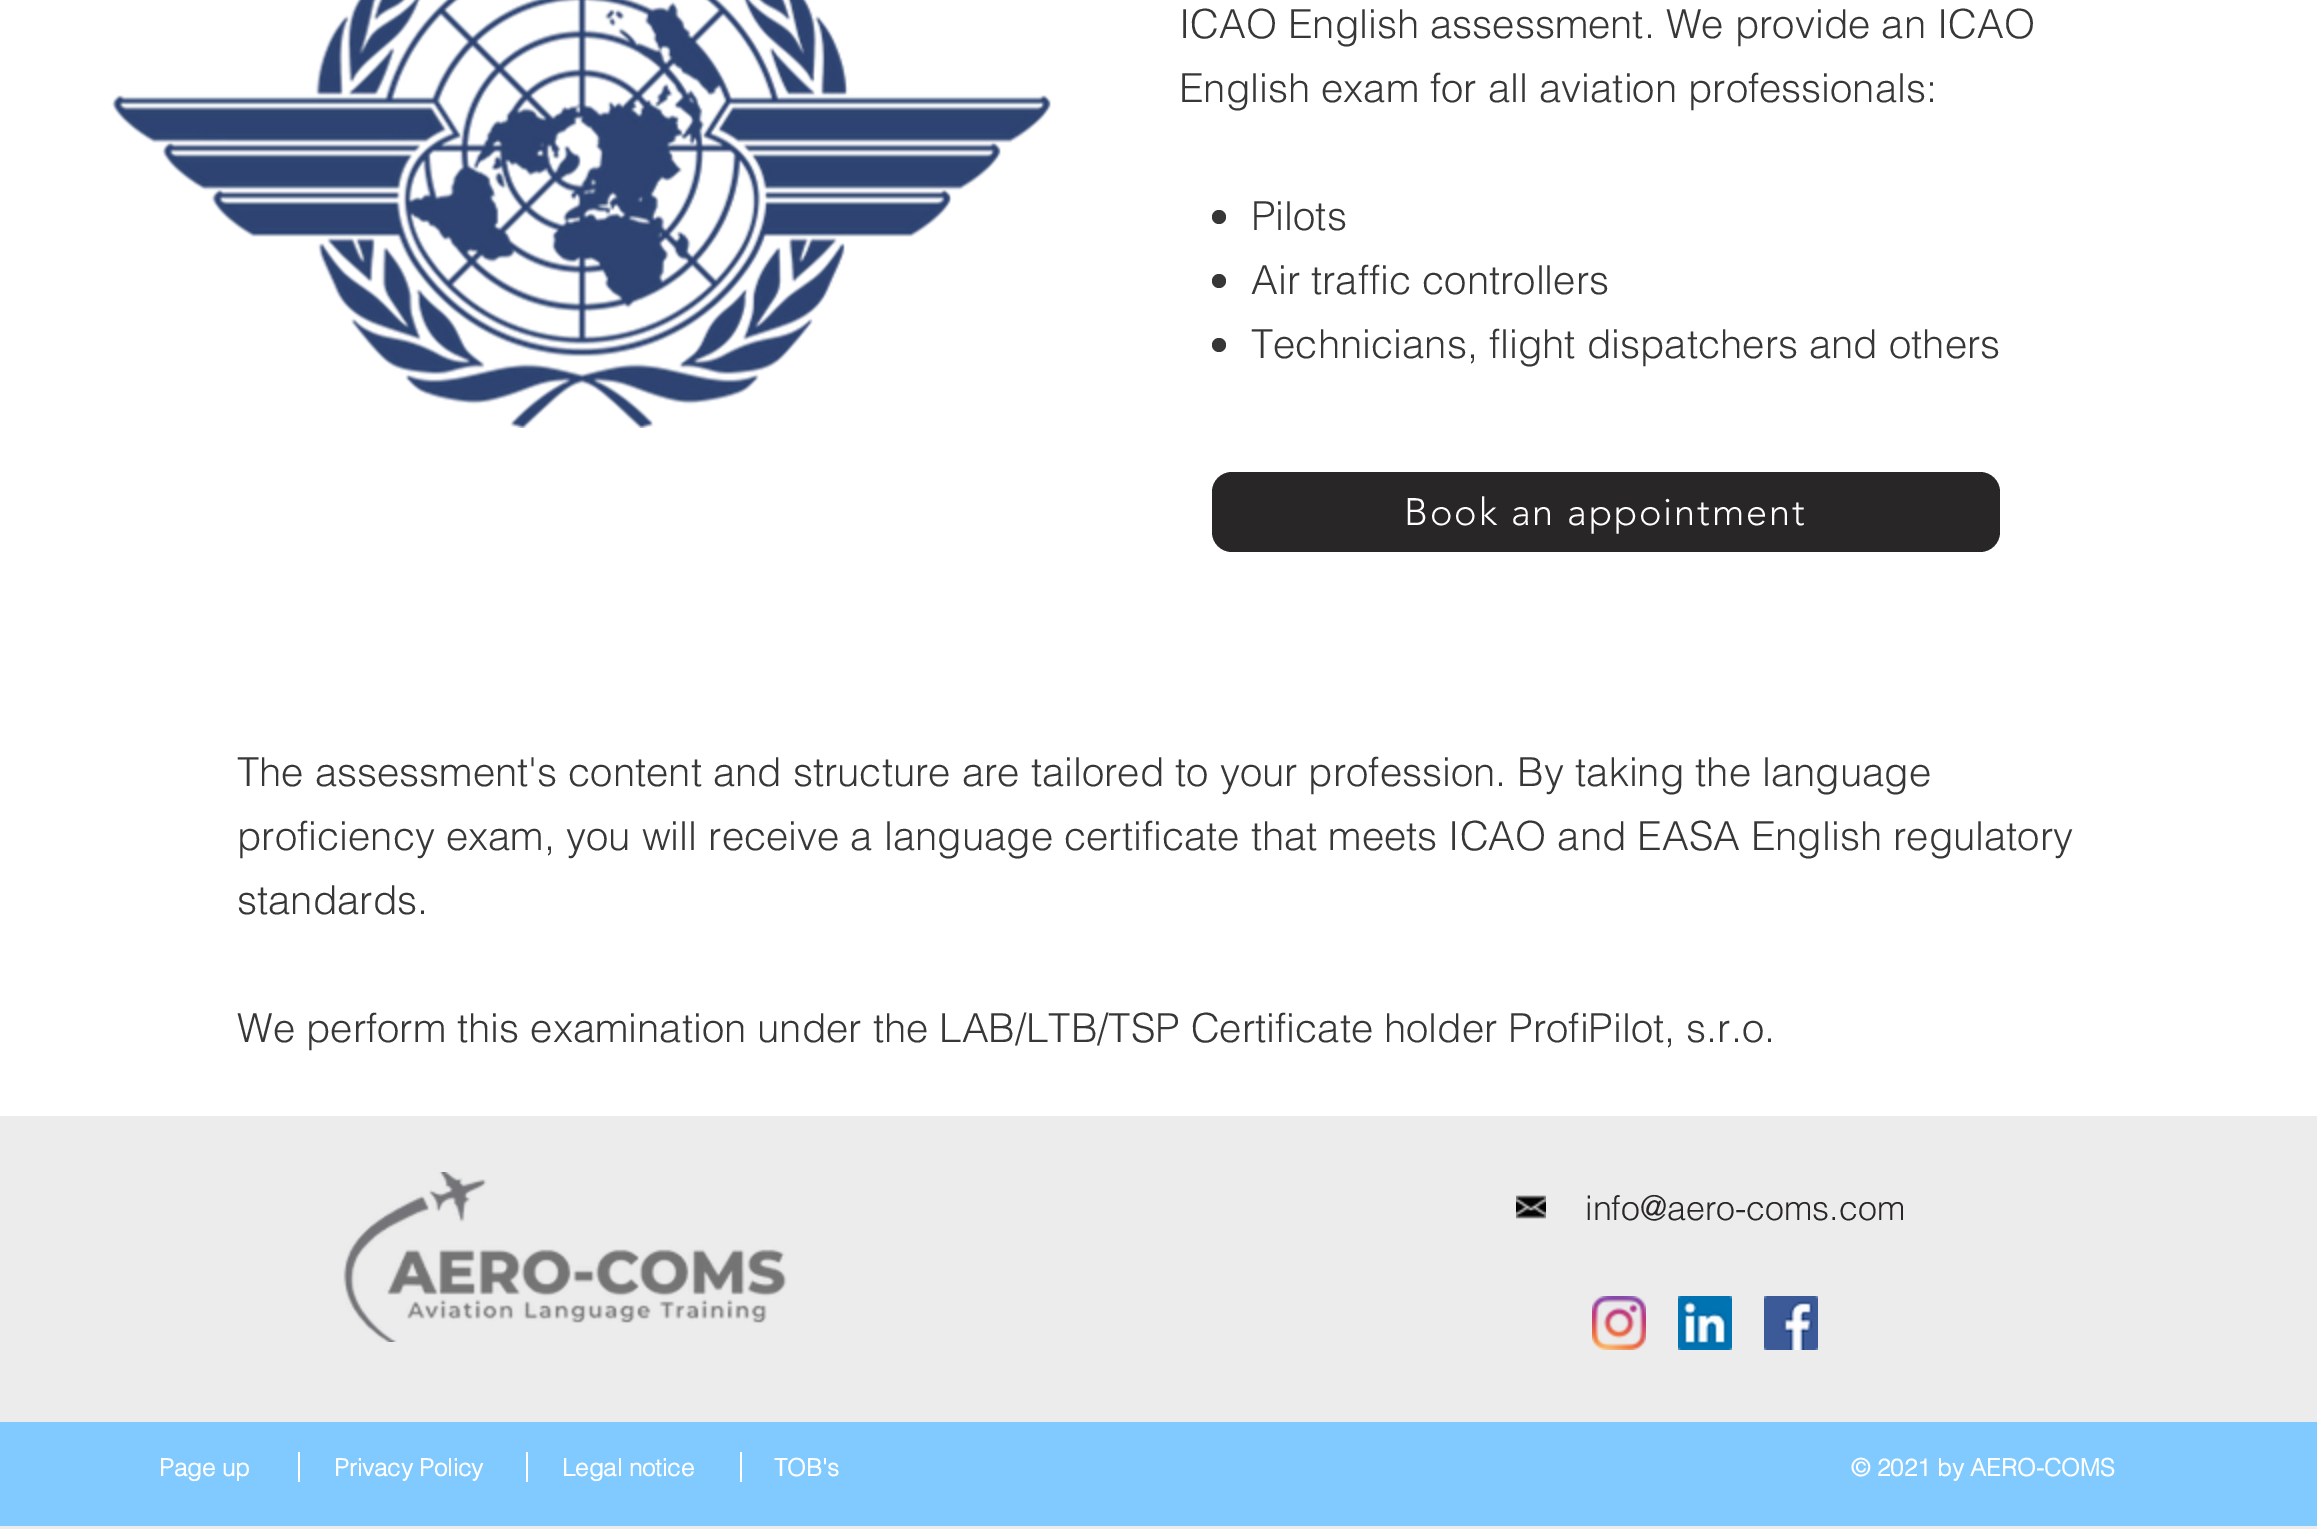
%!PS
<< /PageSize [2317 1529] >> setpagedevice
/roundrect { 5 dict begin { /r /h /w /y /x } { exch def } forall
  x r add y moveto x w add y 2 copy h add r arct x w add y h add x 1 index r arct
  x y h add x y r arct x y 2 copy exch w add exch r arct closepath end } def
/picture { 5 dict begin { /h /w /y /x /name } { exch def } forall
  gsave x y translate w h scale
  w h 8 [w 0 0 h 0 0] name (r) file false 3 colorimage grestore end } def
0 1529 translate 1 -1 scale
4 setmiterlimit
1 setgray
0 0 2317 1529 rectfill
(img1.rgb) 111 0 940 428 picture
/helvetica-Light [40 0 0 -40 0 0] selectfont
0.216 setgray
1179 38 moveto (ICAO English assessment. We provide an ICAO) show
1179 102 moveto (English exam for all aviation professionals:) show
newpath 1219 217 7 0 360 arc closepath fill
1251 230 moveto (Pilots) show
newpath 1219 281 7 0 360 arc closepath fill
1251 294 moveto (Air traffic controllers) show
newpath 1219 345 7 0 360 arc closepath fill
1251 358 moveto (Technicians, flight dispatchers and others) show
0.157 0.149 0.149 setrgbcolor
1212 472 788 80 20 roundrect fill
/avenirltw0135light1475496-Light [38 0 0 -38 0 0] selectfont
1 setgray
1404 525 moveto 1.9 0 (Book an appointment) ashow
/helvetica-Light [40 0 0 -40 0 0] selectfont
0.216 setgray
237 786 moveto (The assessment's content and structure are tailored to your profession. By taking the language) show
237 850 moveto (proficiency exam, you will receive a language certificate that meets ICAO and EASA English regulatory) show
237 914 moveto (standards.) show
237 1042 moveto (We perform this examination under the LAB/LTB/TSP Certificate holder ProfiPilot, s.r.o.) show
0.925 setgray
0 1116 2317 413 rectfill
(img2.rgb) 343 1172 444 170 picture
(img3.rgb) 1516 1195 30 24 picture
/helvetica-Light [34 0 0 -34 0 0] selectfont
0.157 0.149 0.149 setrgbcolor
1585 1220 moveto (info@aero-coms.com) show
(img4.rgb) 1592 1296 54 54 picture
(img5.rgb) 1678 1296 54 54 picture
(img6.rgb) 1764 1296 54 54 picture
0.502 0.792 1 setrgbcolor
0 1422 2317 104 rectfill
/helvetica-Bold [24 0 0 -24 0 0] selectfont
1 setgray
159 1476 moveto (Page up) show
298 1452 2 30 rectfill
334 1476 moveto (Privacy Policy) show
526 1452 2 30 rectfill
562 1476 moveto (Legal notice) show
740 1452 2 30 rectfill
774 1476 moveto (TOB's) show
1851 1476 moveto (© 2021 by AERO-COMS) show
showpage
